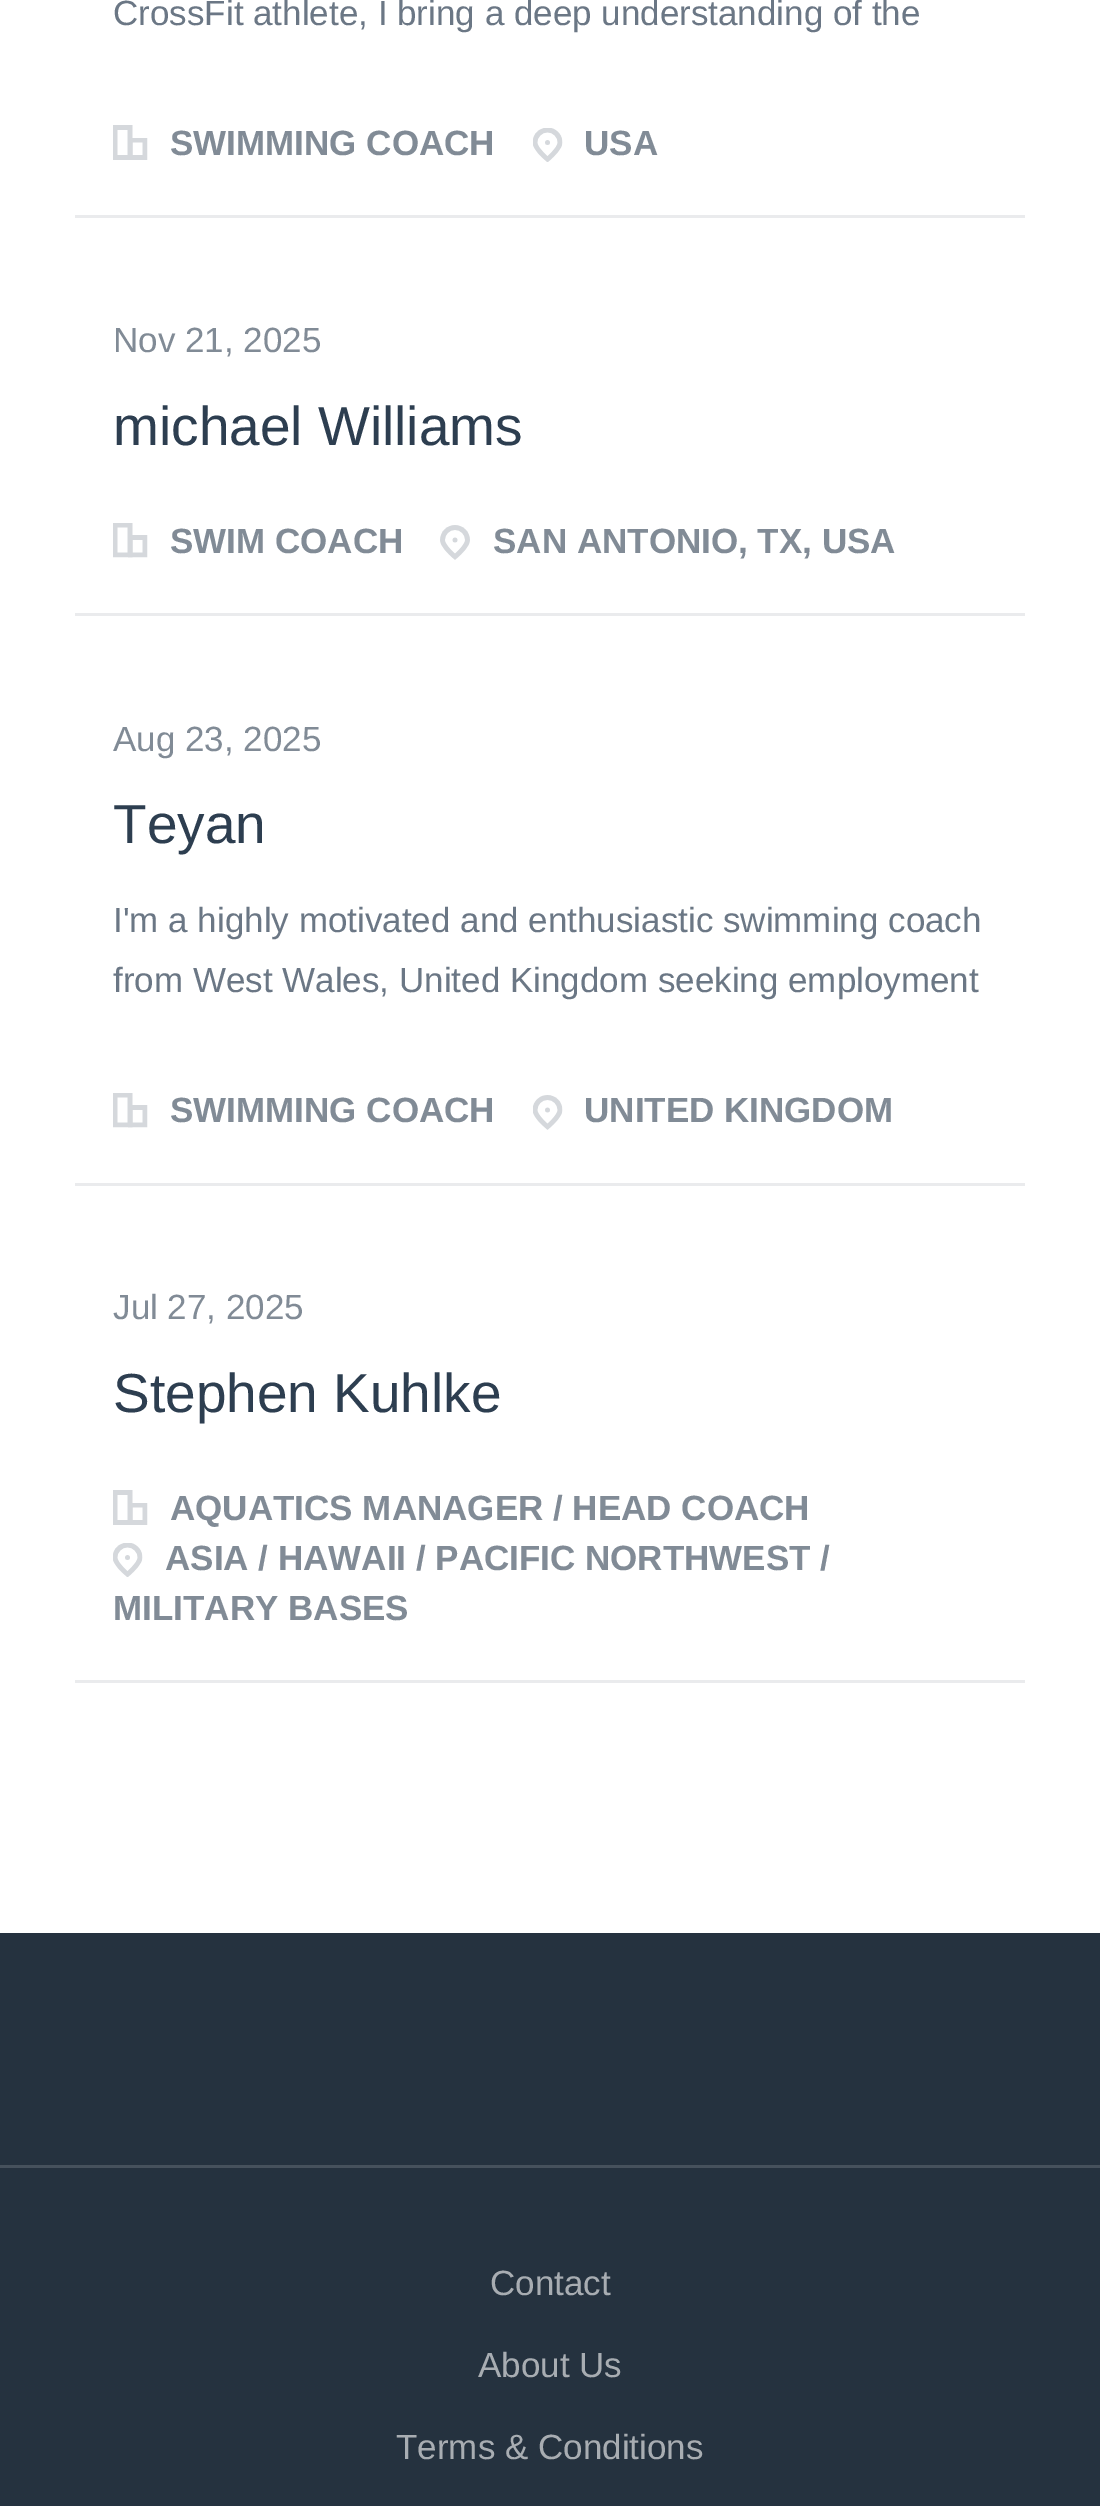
%!PS
<< /PageSize [1100 2506] >> setpagedevice
/picture { 5 dict begin { /h /w /y /x /name } { exch def } forall
  gsave x y translate w h scale
  w h 8 [w 0 0 h 0 0] name (r) file false 3 colorimage grestore end } def
0 2506 translate 1 -1 scale
4 setmiterlimit
1 setgray
0 0 1100 2506 rectfill
0.918 0.922 0.929 setrgbcolor
75 215 950 3 rectfill
/LiberationSans-Regular [35 0 0 -35 0 0] selectfont
0.42 0.467 0.522 setrgbcolor
113 25 moveto (CrossFit athlete, I bring a deep understanding of the) show
(img1.rgb) 113 125 35 35 picture
/LiberationSans-Bold [35 0 0 -35 0 0] selectfont
0.506 0.545 0.588 setrgbcolor
170 155 moveto (SWIMMING COACH) show
(img2.rgb) 533 128 30 34 picture
584 155 moveto (USA) show
0.918 0.922 0.929 setrgbcolor
75 613 950 3 rectfill
/LiberationSans-Regular [35 0 0 -35 0 0] selectfont
0.506 0.545 0.588 setrgbcolor
113 352 moveto (Nov 21, 2025) show
/LiberationSans-Regular [55 0 0 -55 0 0] selectfont
0.176 0.243 0.314 setrgbcolor
113 445 moveto (michael Williams) show
(img3.rgb) 113 523 35 35 picture
/LiberationSans-Bold [35 0 0 -35 0 0] selectfont
0.506 0.545 0.588 setrgbcolor
170 553 moveto (SWIM COACH) show
(img4.rgb) 440 525 30 35 picture
493 553 moveto (SAN ANTONIO, TX, USA) show
0.918 0.922 0.929 setrgbcolor
75 1183 950 3 rectfill
/LiberationSans-Regular [35 0 0 -35 0 0] selectfont
0.506 0.545 0.588 setrgbcolor
113 751 moveto (Aug 23, 2025) show
/LiberationSans-Regular [55 0 0 -55 0 0] selectfont
0.176 0.243 0.314 setrgbcolor
113 843 moveto (Teyan) show
/LiberationSans-Regular [35 0 0 -35 0 0] selectfont
0.42 0.467 0.522 setrgbcolor
113 932 moveto (I'm a highly motivated and enthusiastic swimming coach) show
113 992 moveto (from West Wales, United Kingdom seeking employment) show
(img3.rgb) 113 1093 35 35 picture
/LiberationSans-Bold [35 0 0 -35 0 0] selectfont
0.506 0.545 0.588 setrgbcolor
170 1122 moveto (SWIMMING COACH) show
(img5.rgb) 533 1095 30 35 picture
584 1122 moveto (UNITED KINGDOM) show
0.918 0.922 0.929 setrgbcolor
75 1680 950 3 rectfill
/LiberationSans-Regular [35 0 0 -35 0 0] selectfont
0.506 0.545 0.588 setrgbcolor
113 1319 moveto (Jul 27, 2025) show
/LiberationSans-Regular [55 0 0 -55 0 0] selectfont
0.176 0.243 0.314 setrgbcolor
113 1412 moveto (Stephen Kuhlke) show
(img1.rgb) 113 1490 35 35 picture
/LiberationSans-Bold [35 0 0 -35 0 0] selectfont
0.506 0.545 0.588 setrgbcolor
170 1520 moveto (AQUATICS MANAGER / HEAD COACH) show
(img2.rgb) 113 1543 30 34 picture
165 1570 moveto (ASIA / HAWAII / PACIFIC NORTHWEST /) show
113 1620 moveto (MILITARY BASES) show
0.145 0.196 0.247 setrgbcolor
0 1933 1100 573 rectfill
0.275 0.318 0.361 setrgbcolor
0 2165 1100 3 rectfill
/LiberationSans-Regular [35 0 0 -35 0 0] selectfont
0.659 0.678 0.698 setrgbcolor
490 2295 moveto (Contact) show
478 2377 moveto (About Us) show
396 2459 moveto (Terms & Conditions) show
showpage
